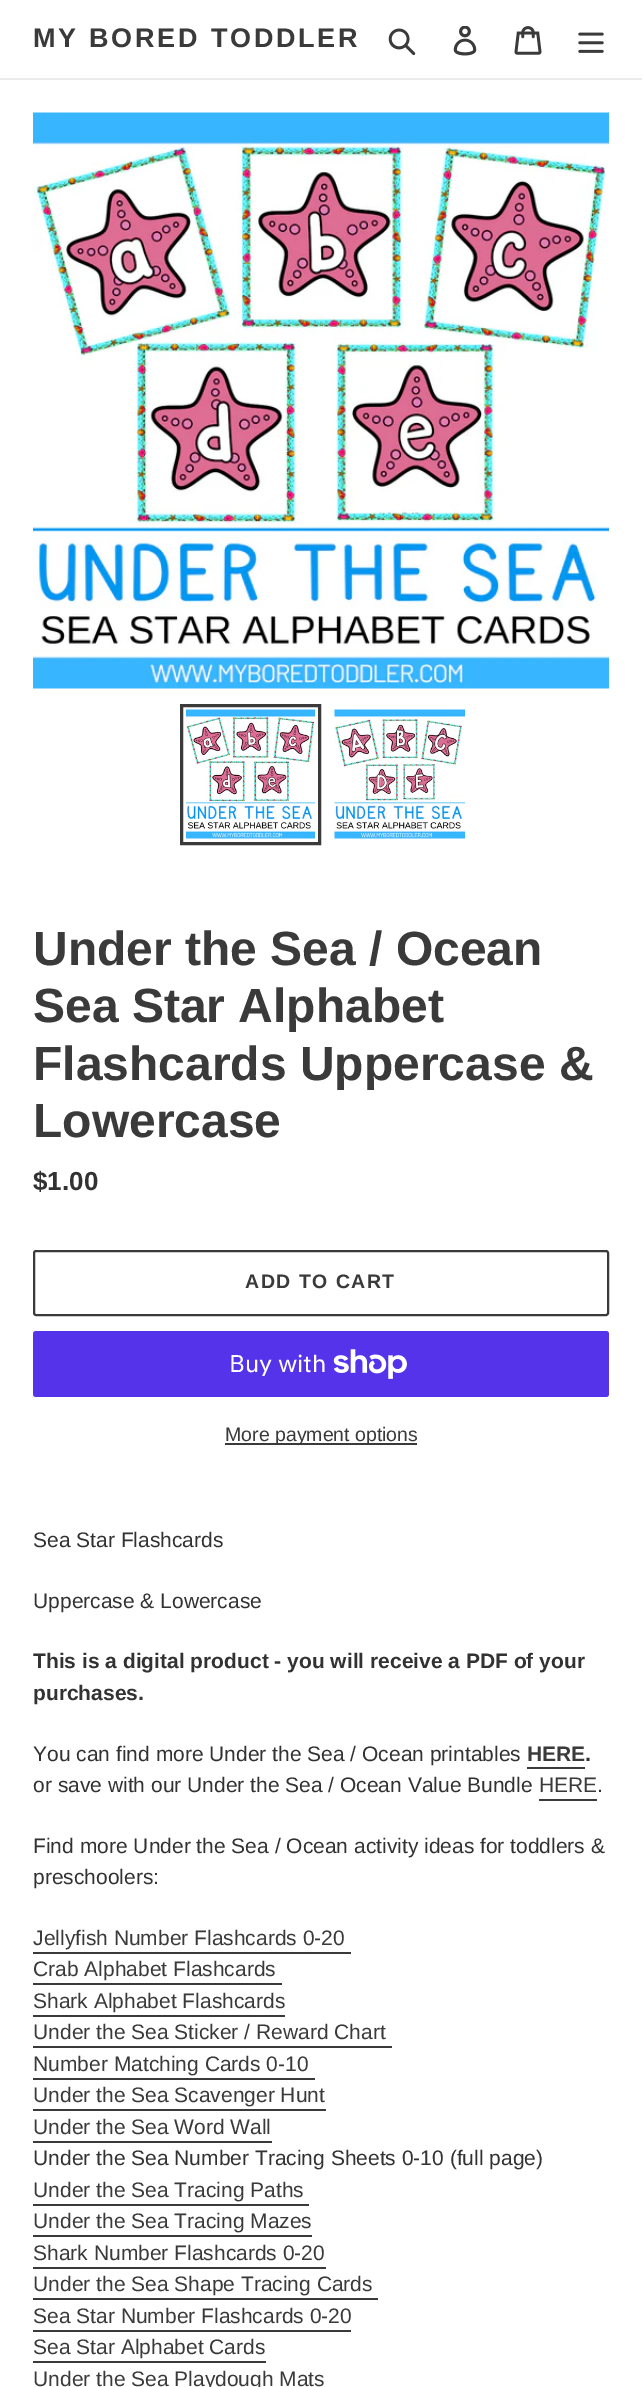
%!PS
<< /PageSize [642 2387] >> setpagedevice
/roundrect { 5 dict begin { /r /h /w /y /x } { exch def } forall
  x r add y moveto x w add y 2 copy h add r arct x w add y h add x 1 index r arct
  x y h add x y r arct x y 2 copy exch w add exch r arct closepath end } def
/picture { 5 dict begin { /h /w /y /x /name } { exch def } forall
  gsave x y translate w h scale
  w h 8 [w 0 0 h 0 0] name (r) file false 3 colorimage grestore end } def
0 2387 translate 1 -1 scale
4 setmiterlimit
1 setgray
0 0 642 2387 rectfill
0.922 setgray
0 78 642 2 rectfill
/LiberationSans-Bold [27 0 0 -27 0 0] selectfont
0.227 setgray
33 47 moveto 2.75 0 (MY BORED TODDLER) ashow
(img1.rgb) 388 28 28 28 picture
(img2.rgb) 453 26 24 30 picture
(img3.rgb) 514 26 28 29 picture
(img4.rgb) 578 32 26 21 picture
(img5.rgb) 33 112 576 577 picture
3 setlinewidth
181.5 705.5 138 138 rectstroke
(img6.rgb) 186 709 129 130 picture
(img7.rgb) 334 709 131 130 picture
/LiberationSans-Bold [48 0 0 -48 0 0] selectfont
33 965 moveto (Under the Sea / Ocean) show
33 1022 moveto (Sea Star Alphabet) show
33 1080 moveto (Flashcards Uppercase &) show
33 1137 moveto (Lowercase) show
/LiberationSans-Bold [26 0 0 -26 0 0] selectfont
0.2 0.196 0.196 setrgbcolor
33 1190 moveto ($1.00) show
0.227 setgray
2 setlinewidth
34 1251 574 64 2 roundrect stroke
/LiberationSans-Bold [19.5 0 0 -19.5 0 0] selectfont
245 1288 moveto 1.5 0 (ADD TO CART) ashow
0.329 0.2 0.922 setrgbcolor
33 1331 576 66 3 roundrect fill
/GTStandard-Regular [24 0 0 -24 0 0] selectfont
1 setgray
229 1372 moveto (Buy with) show
(img8.rgb) 333 1349 74 30 picture
0.227 setgray
225 1443 192 2 rectfill
/LiberationSans-Regular [19.5 0 0 -19.5 0 0] selectfont
225 1441 moveto (More payment options) show
/LiberationSans-Regular [21 0 0 -21 0 0] selectfont
0.2 0.196 0.196 setrgbcolor
33 1547 moveto (Sea Star Flashcards) show
33 1608 moveto (Uppercase & Lowercase) show
/LiberationSans-Bold [21 0 0 -21 0 0] selectfont
33 1668 moveto (This is a digital product - you will receive a PDF of your) show
33 1700 moveto (purchases.) show
/LiberationSans-Regular [21 0 0 -21 0 0] selectfont
33 1761 moveto (You can find more Under the Sea / Ocean printables) show
/LiberationSans-Bold [21 0 0 -21 0 0] selectfont
0.227 setgray
527 1761 moveto (HERE) show
0.2 0.196 0.196 setrgbcolor
585 1761 moveto (.) show
0.227 setgray
527 1767 58 2 rectfill
/LiberationSans-Regular [21 0 0 -21 0 0] selectfont
0.2 0.196 0.196 setrgbcolor
33 1792 moveto (or save with our Under the Sea / Ocean Value Bundle) show
0.227 setgray
539 1792 moveto (HERE) show
539 1799 58 2 rectfill
0.2 0.196 0.196 setrgbcolor
597 1792 moveto (.) show
33 1853 moveto (Find more Under the Sea / Ocean activity ideas for toddlers &) show
33 1884 moveto (preschoolers:) show
0.227 setgray
33 1945 moveto (Jellyfish Number Flashcards 0-20) show
33 1952 318 2 rectfill
33 1976 moveto (Crab Alphabet Flashcards) show
33 1983 249 2 rectfill
33 2008 moveto (Shark Alphabet Flashcards) show
33 2015 252 2 rectfill
33 2039 moveto (Under the Sea Sticker / Reward Chart) show
33 2046 359 2 rectfill
33 2071 moveto (Number Matching Cards 0-10) show
33 2078 282 2 rectfill
33 2102 moveto (Under the Sea Scavenger Hunt) show
33 2109 293 2 rectfill
33 2134 moveto (Under the Sea Word Wall) show
33 2141 239 2 rectfill
0.2 0.196 0.196 setrgbcolor
33 2165 moveto (Under the Sea Number Tracing Sheets 0-10 \(full page\)) show
0.227 setgray
33 2197 moveto (Under the Sea Tracing Paths) show
33 2204 276 2 rectfill
33 2228 moveto (Under the Sea Tracing Mazes) show
33 2235 279 2 rectfill
33 2260 moveto (Shark Number Flashcards 0-20) show
33 2267 293 2 rectfill
33 2291 moveto (Under the Sea Shape Tracing Cards) show
33 2298 345 2 rectfill
33 2323 moveto (Sea Star Number Flashcards 0-20) show
33 2330 318 2 rectfill
33 2354 moveto (Sea Star Alphabet Cards) show
33 2361 233 2 rectfill
33 2386 moveto (Under the Sea Playdough Mats) show
showpage
